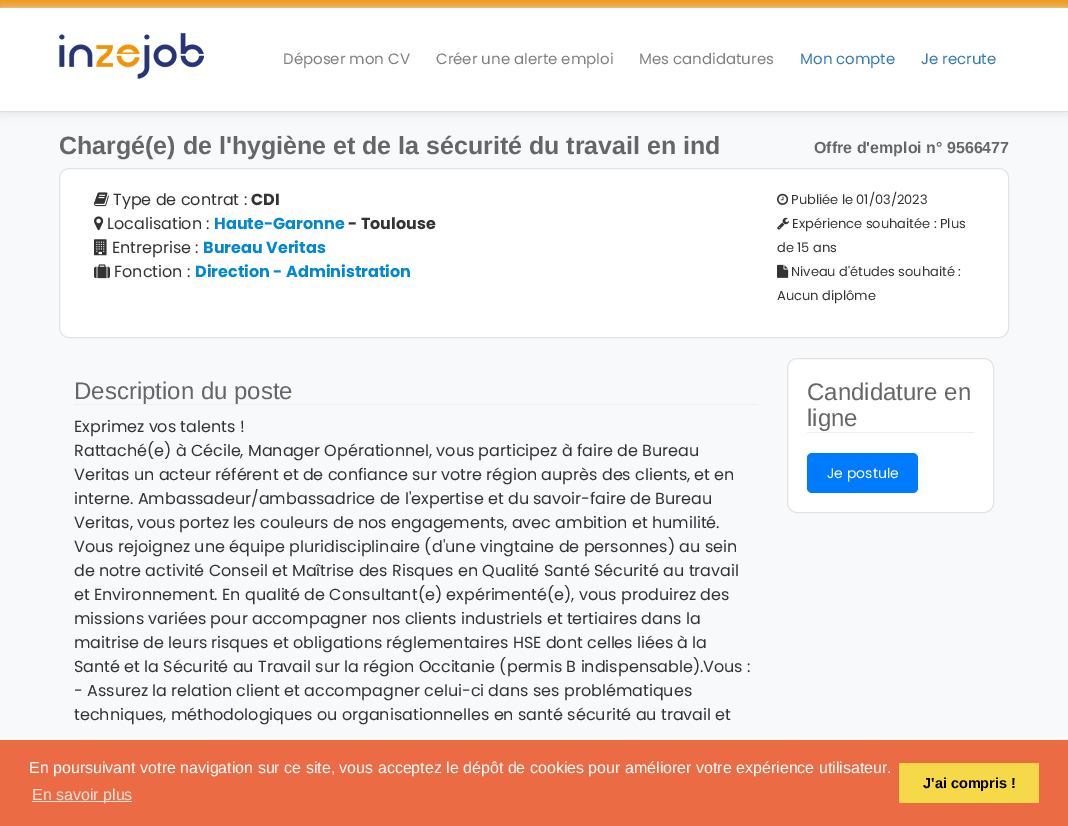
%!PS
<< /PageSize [1068 826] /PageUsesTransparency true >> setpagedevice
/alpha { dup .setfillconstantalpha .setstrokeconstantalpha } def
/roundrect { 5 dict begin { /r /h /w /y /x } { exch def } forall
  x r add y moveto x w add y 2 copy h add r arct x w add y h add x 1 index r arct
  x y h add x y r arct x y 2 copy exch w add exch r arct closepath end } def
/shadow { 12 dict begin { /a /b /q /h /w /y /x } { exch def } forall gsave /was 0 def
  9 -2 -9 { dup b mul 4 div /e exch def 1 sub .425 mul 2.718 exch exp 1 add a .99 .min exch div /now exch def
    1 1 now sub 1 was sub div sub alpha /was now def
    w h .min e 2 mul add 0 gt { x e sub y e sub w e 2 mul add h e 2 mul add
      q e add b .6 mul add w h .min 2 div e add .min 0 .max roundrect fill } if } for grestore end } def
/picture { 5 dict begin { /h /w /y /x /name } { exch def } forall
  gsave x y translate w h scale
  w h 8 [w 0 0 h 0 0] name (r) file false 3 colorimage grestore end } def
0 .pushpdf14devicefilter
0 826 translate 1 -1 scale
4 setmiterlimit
0.973 0.976 0.98 setrgbcolor
0 0 1068 826 rectfill
0.945 0.58 0.035 setrgbcolor
0 0 1068 8 rectfill
0.867 setgray
0 8 1068 104 0 6 1 shadow
1 setgray
0 8 1068 103 rectfill
0.871 0.878 0.875 setrgbcolor
0 111 1068 1 rectfill
(img1.rgb) 59 33 145 46 picture
/Poppins-Regular [15 0 0 -15 0 0] selectfont
0.502 setgray
283 64 moveto (Déposer mon CV) show
436 64 moveto (Créer une alerte emploi) show
639 64 moveto (Mes candidatures) show
0.2 0.478 0.718 setrgbcolor
800 64 moveto (Mon compte) show
921 64 moveto (Je recrute) show
/LiberationSans-Bold [25 0 0 -25 0 0] selectfont
0.4 setgray
59 154 moveto (Chargé\(e\) de l'hygiène et de la sécurité du travail en ind) show
/LiberationSans-Bold [16 0 0 -16 0 0] selectfont
814 153 moveto (Offre d'emploi n° 9566477) show
1 setgray
59.5 168.5 949 169 9.5 roundrect gsave fill grestore
0.89 setgray
stroke
(img2.rgb) 94 192 15 15 picture
/Poppins-Regular [16 0 0 -16 0 0] selectfont
0.2 setgray
113 205 moveto (Type de contrat :) show
/Poppins-Bold [16 0 0 -16 0 0] selectfont
251 205 moveto (CDI) show
(img3.rgb) 94 216 10 15 picture
/Poppins-Regular [16 0 0 -16 0 0] selectfont
107 229 moveto (Localisation :) show
/Poppins-Bold [16 0 0 -16 0 0] selectfont
0.016 0.533 0.804 setrgbcolor
214 229 moveto (Haute-Garonne) show
0.2 setgray
348 229 moveto (- Toulouse) show
(img4.rgb) 94 239 13 17 picture
/Poppins-Regular [16 0 0 -16 0 0] selectfont
112 253 moveto (Entreprise :) show
/Poppins-Bold [16 0 0 -16 0 0] selectfont
0.016 0.533 0.804 setrgbcolor
203 253 moveto (Bureau Veritas) show
(img5.rgb) 94 264 16 15 picture
/Poppins-Regular [16 0 0 -16 0 0] selectfont
0.2 setgray
114 277 moveto (Fonction :) show
/Poppins-Bold [16 0 0 -16 0 0] selectfont
0.016 0.533 0.804 setrgbcolor
195 277 moveto (Direction - Administration) show
(img6.rgb) 777 193 12 12 picture
/Poppins-Regular [13 0 0 -13 0 0] selectfont
0.2 setgray
791 204 moveto (Publiée le 01/03/2023) show
(img7.rgb) 777 217 12 13 picture
792 228 moveto (Expérience souhaitée : Plus) show
777 252 moveto (de 15 ans) show
(img8.rgb) 777 264 12 14 picture
791 276 moveto (Niveau d'études souhaité :) show
777 300 moveto (Aucun diplôme) show
0.933 setgray
74 404 683 1 rectfill
/LiberationSans-Regular [24 0 0 -24 0 0] selectfont
0.4 setgray
74 399 moveto (Description du poste) show
/Poppins-Regular [16 0 0 -16 0 0] selectfont
0.2 setgray
74 432 moveto (Exprimez vos talents !) show
74 456 moveto (Rattaché\(e\) à Cécile, Manager Opérationnel, vous participez à faire de Bureau) show
74 480 moveto (Veritas un acteur référent et de confiance sur votre région auprès des clients, et en) show
74 504 moveto (interne. Ambassadeur/ambassadrice de l'expertise et du savoir-faire de Bureau) show
74 528 moveto (Veritas, vous portez les couleurs de nos engagements, avec ambition et humilité.) show
74 552 moveto (Vous rejoignez une équipe pluridisciplinaire \(d'une vingtaine de personnes\) au sein) show
74 576 moveto (de notre activité Conseil et Maîtrise des Risques en Qualité Santé Sécurité au travail) show
74 600 moveto (et Environnement. En qualité de Consultant\(e\) expérimenté\(e\), vous produirez des) show
74 624 moveto (missions variées pour accompagner nos clients industriels et tertiaires dans la) show
74 648 moveto (maitrise de leurs risques et obligations réglementaires HSE dont celles liées à la) show
74 672 moveto (Santé et la Sécurité au Travail sur la région Occitanie \(permis B indispensable\).Vous :) show
74 696 moveto (- Assurez la relation client et accompagner celui-ci dans ses problématiques) show
74 720 moveto (techniques, méthodologiques ou organisationnelles en santé sécurité au travail et) show
1 setgray
787.5 358.5 206 154 9.5 roundrect gsave fill grestore
0.89 setgray
stroke
0.933 setgray
807 432 167 1 rectfill
/LiberationSans-Regular [24 0 0 -24 0 0] selectfont
0.4 setgray
807 400 moveto (Candidature en) show
807 426 moveto (ligne) show
0 0.482 1 setrgbcolor
807 453 111 40 5 roundrect fill
/Poppins-Regular [14 0 0 -14 0 0] selectfont
1 setgray
827 478 moveto (Je postule) show
0.922 0.424 0.267 setrgbcolor
0 740 1068 86 rectfill
/LiberationSans-Regular [16 0 0 -16 0 0] selectfont
1 setgray
29 773 moveto (En poursuivant votre navigation sur ce site, vous acceptez le dépôt de cookies pour améliorer votre expérience utilisateur.) show
0.984 0.886 0.855 setrgbcolor
32 801 100 1 rectfill
32 800 moveto (En savoir plus) show
0.961 0.851 0.282 setrgbcolor
899 763 140 40 rectfill
/LiberationSans-Bold [14.5 0 0 -14.5 0 0] selectfont
0 setgray
923 788 moveto (J'ai compris !) show
.poppdf14devicefilter showpage
